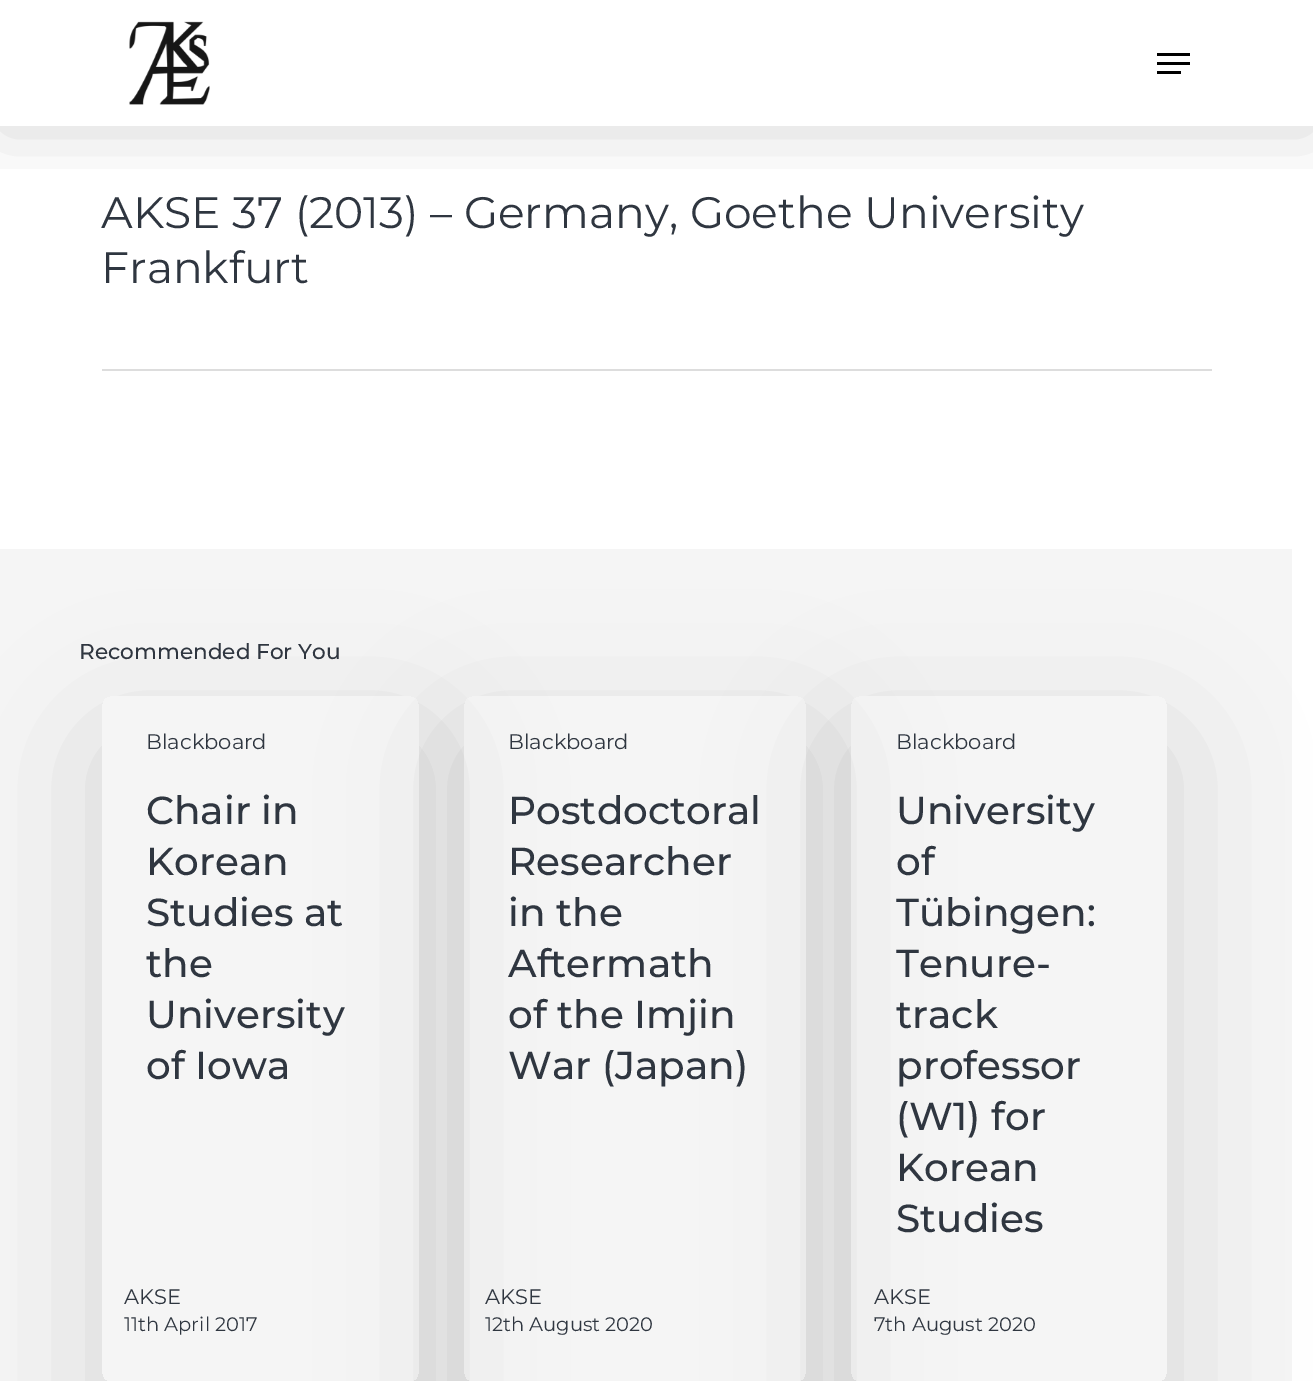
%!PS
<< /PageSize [1313 1381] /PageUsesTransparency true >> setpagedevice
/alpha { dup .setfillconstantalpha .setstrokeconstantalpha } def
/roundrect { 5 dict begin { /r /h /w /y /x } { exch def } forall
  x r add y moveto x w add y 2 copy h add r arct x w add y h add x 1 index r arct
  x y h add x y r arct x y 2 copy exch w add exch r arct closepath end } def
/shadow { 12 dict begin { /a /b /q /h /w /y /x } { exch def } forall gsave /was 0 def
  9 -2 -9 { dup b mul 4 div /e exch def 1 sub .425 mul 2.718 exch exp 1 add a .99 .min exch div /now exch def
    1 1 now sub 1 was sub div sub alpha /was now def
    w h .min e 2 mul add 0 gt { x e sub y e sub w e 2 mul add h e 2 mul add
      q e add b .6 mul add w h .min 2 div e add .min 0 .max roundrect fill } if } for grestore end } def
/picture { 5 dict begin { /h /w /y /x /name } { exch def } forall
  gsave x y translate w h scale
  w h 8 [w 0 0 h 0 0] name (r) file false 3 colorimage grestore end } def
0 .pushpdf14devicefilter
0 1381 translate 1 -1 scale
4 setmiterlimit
1 setgray
0 0 1313 1381 rectfill
0.961 setgray
0 549 1292 832 rectfill
gsave
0 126 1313 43 rectclip
0 setgray
0 5 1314 126 0 34 0.15 shadow
grestore
(img1.rgb) 129 21 81 84 picture
0 setgray
1157 53 33 3 rectfill
1157 71 24 3 rectfill
1157 62 33 3 rectfill
0.867 setgray
102 369 1110 2 rectfill
/Montserrat-Thin [44.1 0 0 -44.1 0 0] selectfont
0.184 0.212 0.251 setrgbcolor
101 228 moveto (AKSE 37 \(2013\) – Germany, Goethe University) show
101 283 moveto (Frankfurt) show
/Montserrat-Medium [21.6 0 0 -21.6 0 0] selectfont
79 659 moveto (Recommended For You) show
gsave
newpath 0 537 moveto 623 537 lineto 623 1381 lineto 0 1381 lineto closepath 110 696 moveto 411 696 lineto 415.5 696 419 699.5 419 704 curveto 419 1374 lineto 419 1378.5 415.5 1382 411 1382 curveto 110 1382 lineto 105.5 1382 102 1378.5 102 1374 curveto 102 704 lineto 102 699.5 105.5 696 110 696 curveto closepath eoclip newpath
0 setgray
102 741 317 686 8 67.5 0.14 shadow
grestore
gsave
newpath 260 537 moveto 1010 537 lineto 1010 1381 lineto 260 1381 lineto closepath 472 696 moveto 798 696 lineto 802.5 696 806 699.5 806 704 curveto 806 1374 lineto 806 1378.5 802.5 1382 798 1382 curveto 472 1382 lineto 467.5 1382 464 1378.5 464 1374 curveto 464 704 lineto 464 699.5 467.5 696 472 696 curveto closepath eoclip newpath
0 setgray
464 741 342 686 8 67.5 0.14 shadow
grestore
/Montserrat-Thin [21 0 0 -21 0 0] selectfont
146 749 moveto (Blackboard) show
/Montserrat-Medium [39 0 0 -39 0 0] selectfont
146 824 moveto (Chair in) show
146 875 moveto (Korean) show
146 926 moveto (Studies at) show
146 977 moveto (the) show
146 1028 moveto (University) show
146 1079 moveto (of Iowa) show
/Montserrat-Thin [21 0 0 -21 0 0] selectfont
124 1304 moveto (AKSE) show
/Montserrat-Thin [19.5 0 0 -19.5 0 0] selectfont
124 1331 moveto (11th April 2017) show
/Montserrat-Thin [21 0 0 -21 0 0] selectfont
508 749 moveto (Blackboard) show
/Montserrat-Medium [39 0 0 -39 0 0] selectfont
508 824 moveto (Postdoctoral) show
508 875 moveto (Researcher) show
508 926 moveto (in the) show
508 977 moveto (Aftermath) show
508 1028 moveto (of the Imjin) show
508 1079 moveto (War \(Japan\)) show
/Montserrat-Thin [21 0 0 -21 0 0] selectfont
485 1304 moveto (AKSE) show
/Montserrat-Thin [19.5 0 0 -19.5 0 0] selectfont
485 1331 moveto (12th August 2020) show
gsave
newpath 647 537 moveto 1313 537 lineto 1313 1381 lineto 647 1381 lineto closepath 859 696 moveto 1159 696 lineto 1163.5 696 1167 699.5 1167 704 curveto 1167 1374 lineto 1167 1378.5 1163.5 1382 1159 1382 curveto 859 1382 lineto 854.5 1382 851 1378.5 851 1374 curveto 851 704 lineto 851 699.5 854.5 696 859 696 curveto closepath eoclip newpath
0 setgray
851 741 316 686 8 67.5 0.14 shadow
grestore
/Montserrat-Thin [21 0 0 -21 0 0] selectfont
896 749 moveto (Blackboard) show
/Montserrat-Medium [39 0 0 -39 0 0] selectfont
896 824 moveto (University) show
896 875 moveto (of) show
896 926 moveto (Tübingen:) show
896 977 moveto (Tenure-) show
896 1028 moveto (track) show
896 1079 moveto (professor) show
896 1130 moveto (\(W1\) for) show
896 1181 moveto (Korean) show
896 1232 moveto (Studies) show
/Montserrat-Thin [21 0 0 -21 0 0] selectfont
874 1304 moveto (AKSE) show
/Montserrat-Thin [19.5 0 0 -19.5 0 0] selectfont
874 1331 moveto (7th August 2020) show
.poppdf14devicefilter showpage
